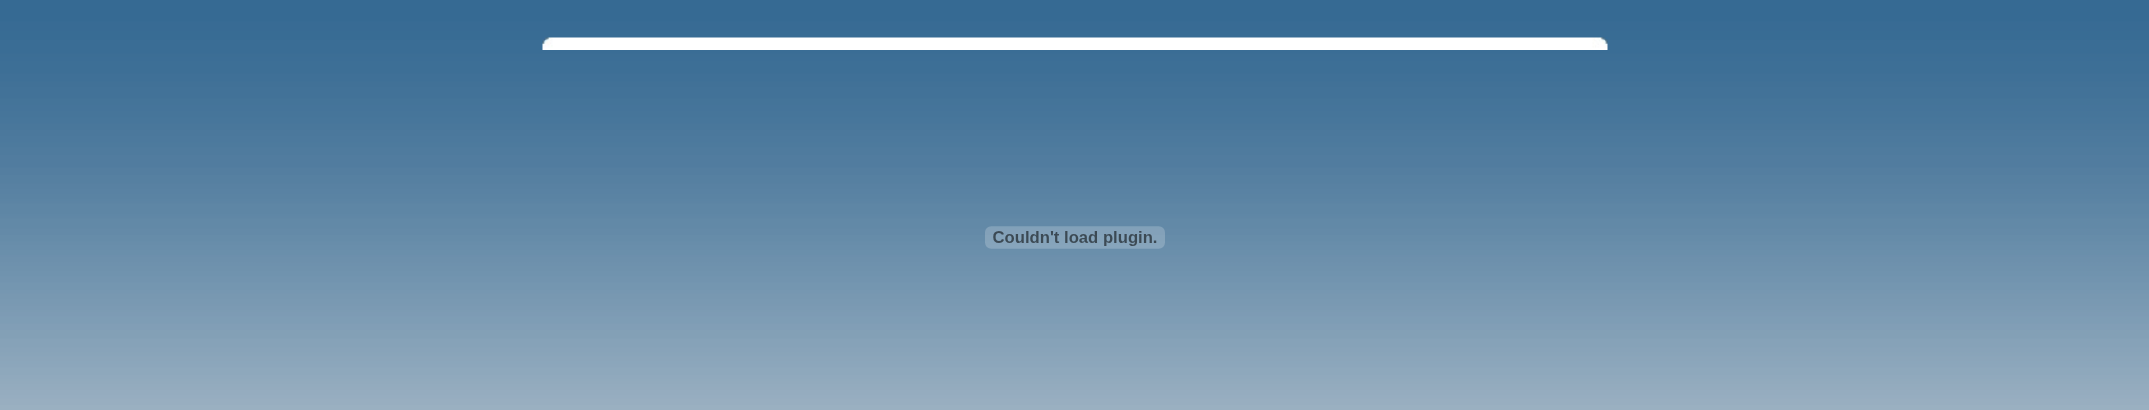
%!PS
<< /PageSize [2149 410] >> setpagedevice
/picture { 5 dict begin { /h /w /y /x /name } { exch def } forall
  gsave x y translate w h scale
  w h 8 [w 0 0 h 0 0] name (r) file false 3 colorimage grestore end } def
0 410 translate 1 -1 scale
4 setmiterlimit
1 setgray
0 0 2149 410 rectfill
(img1.rgb) 0 0 2149 410 picture
(img2.rgb) 542 37 1066 13 picture
(img3.rgb) 985 226 180 23 picture
showpage
